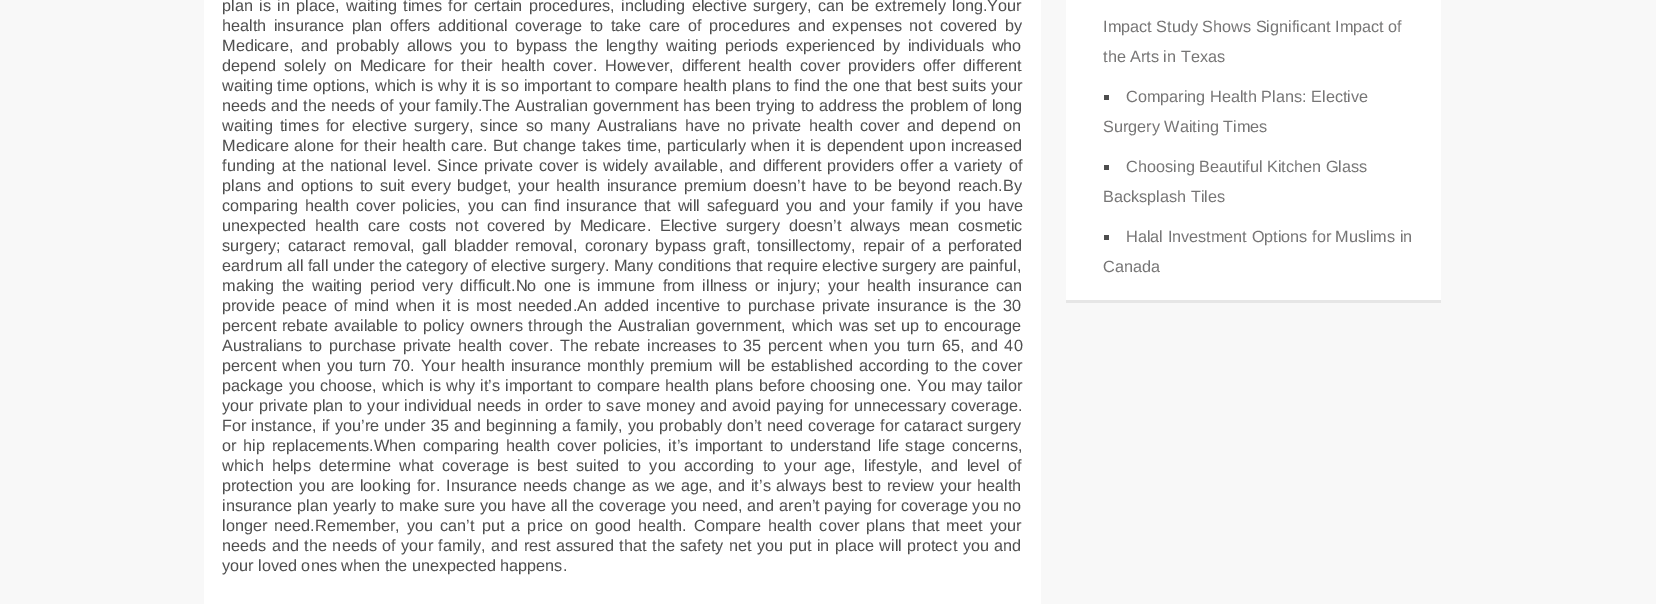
%!PS
<< /PageSize [1656 604] >> setpagedevice
0 604 translate 1 -1 scale
4 setmiterlimit
0.973 setgray
0 0 1656 604 rectfill
1 setgray
204 0 837 604 rectfill
/LiberationSans-Regular [16.25 0 0 -16.25 0 0] selectfont
0.31 setgray
222 11 moveto 1.9 0 32 (plan is in place, waiting times for certain procedures, including elective surgery, can be extremely long.Your) widthshow
222 31 moveto 3 0 32 (health insurance plan offers additional coverage to take care of procedures and expenses not covered by) widthshow
222 51 moveto 3.5 0 32 (Medicare, and probably allows you to bypass the lengthy waiting periods experienced by individuals who) widthshow
222 71 moveto 3.4 0 32 (depend solely on Medicare for their health cover. However, different health cover providers offer different) widthshow
222 91 moveto 0.4 0 32 (waiting time options, which is why it is so important to compare health plans to find the one that best suits your) widthshow
222 111 moveto 0.5 0 32 (needs and the needs of your family.The Australian government has been trying to address the problem of long) widthshow
222 131 moveto 2.75 0 32 (waiting times for elective surgery, since so many Australians have no private health cover and depend on) widthshow
222 151 moveto 1.1 0 32 (Medicare alone for their health care. But change takes time, particularly when it is dependent upon increased) widthshow
222 171 moveto 1.7 0 32 (funding at the national level. Since private cover is widely available, and different providers offer a variety of) widthshow
222 191 moveto 1.9 0 32 (plans and options to suit every budget, your health insurance premium doesn’t have to be beyond reach.By) widthshow
222 211 moveto 2.25 0 32 (comparing health cover policies, you can find insurance that will safeguard you and your family if you have) widthshow
222 231 moveto 4.4 0 32 (unexpected health care costs not covered by Medicare. Elective surgery doesn’t always mean cosmetic) widthshow
222 251 moveto 2.5 0 32 (surgery; cataract removal, gall bladder removal, coronary bypass graft, tonsillectomy, repair of a perforated) widthshow
222 271 moveto (eardrum all fall under the category of elective surgery. Many conditions that require elective surgery are painful,) show
222 291 moveto 2.9 0 32 (making the waiting period very difficult.No one is immune from illness or injury; your health insurance can) widthshow
222 311 moveto 2.5 0 32 (provide peace of mind when it is most needed.An added incentive to purchase private insurance is the 30) widthshow
222 331 moveto 1.25 0 32 (percent rebate available to policy owners through the Australian government, which was set up to encourage) widthshow
222 351 moveto 2.1 0 32 (Australians to purchase private health cover. The rebate increases to 35 percent when you turn 65, and 40) widthshow
222 371 moveto 1.25 0 32 (percent when you turn 70. Your health insurance monthly premium will be established according to the cover) widthshow
222 391 moveto 0.7 0 32 (package you choose, which is why it’s important to compare health plans before choosing one. You may tailor) widthshow
222 411 moveto 0.7 0 32 (your private plan to your individual needs in order to save money and avoid paying for unnecessary coverage.) widthshow
222 431 moveto 0.6 0 32 (For instance, if you’re under 35 and beginning a family, you probably don’t need coverage for cataract surgery) widthshow
222 451 moveto 2.25 0 32 (or hip replacements.When comparing health cover policies, it’s important to understand life stage concerns,) widthshow
222 471 moveto 3.75 0 32 (which helps determine what coverage is best suited to you according to your age, lifestyle, and level of) widthshow
222 491 moveto 1.1 0 32 (protection you are looking for. Insurance needs change as we age, and it’s always best to review your health) widthshow
222 511 moveto 0.25 0 32 (insurance plan yearly to make sure you have all the coverage you need, and aren’t paying for coverage you no) widthshow
222 531 moveto 2.6 0 32 (longer need.Remember, you can’t put a price on good health. Compare health cover plans that meet your) widthshow
222 551 moveto 1 0 32 (needs and the needs of your family, and rest assured that the safety net you put in place will protect you and) widthshow
222 571 moveto (your loved ones when the unexpected happens.) show
1 setgray
1066 0 375 300 rectfill
0.902 setgray
1066 300 375 3 rectfill
0.463 0.459 0.459 setrgbcolor
1103 32 moveto (Impact Study Shows Significant Impact of) show
1103 62 moveto (the Arts in Texas) show
0.306 setgray
1104 95 5 5 rectfill
0.463 0.459 0.459 setrgbcolor
1126 102 moveto (Comparing Health Plans: Elective) show
1103 132 moveto (Surgery Waiting Times) show
0.306 setgray
1104 165 5 5 rectfill
0.463 0.459 0.459 setrgbcolor
1126 172 moveto (Choosing Beautiful Kitchen Glass) show
1103 202 moveto (Backsplash Tiles) show
0.306 setgray
1104 235 5 5 rectfill
0.463 0.459 0.459 setrgbcolor
1126 242 moveto (Halal Investment Options for Muslims in) show
1103 272 moveto (Canada) show
showpage
